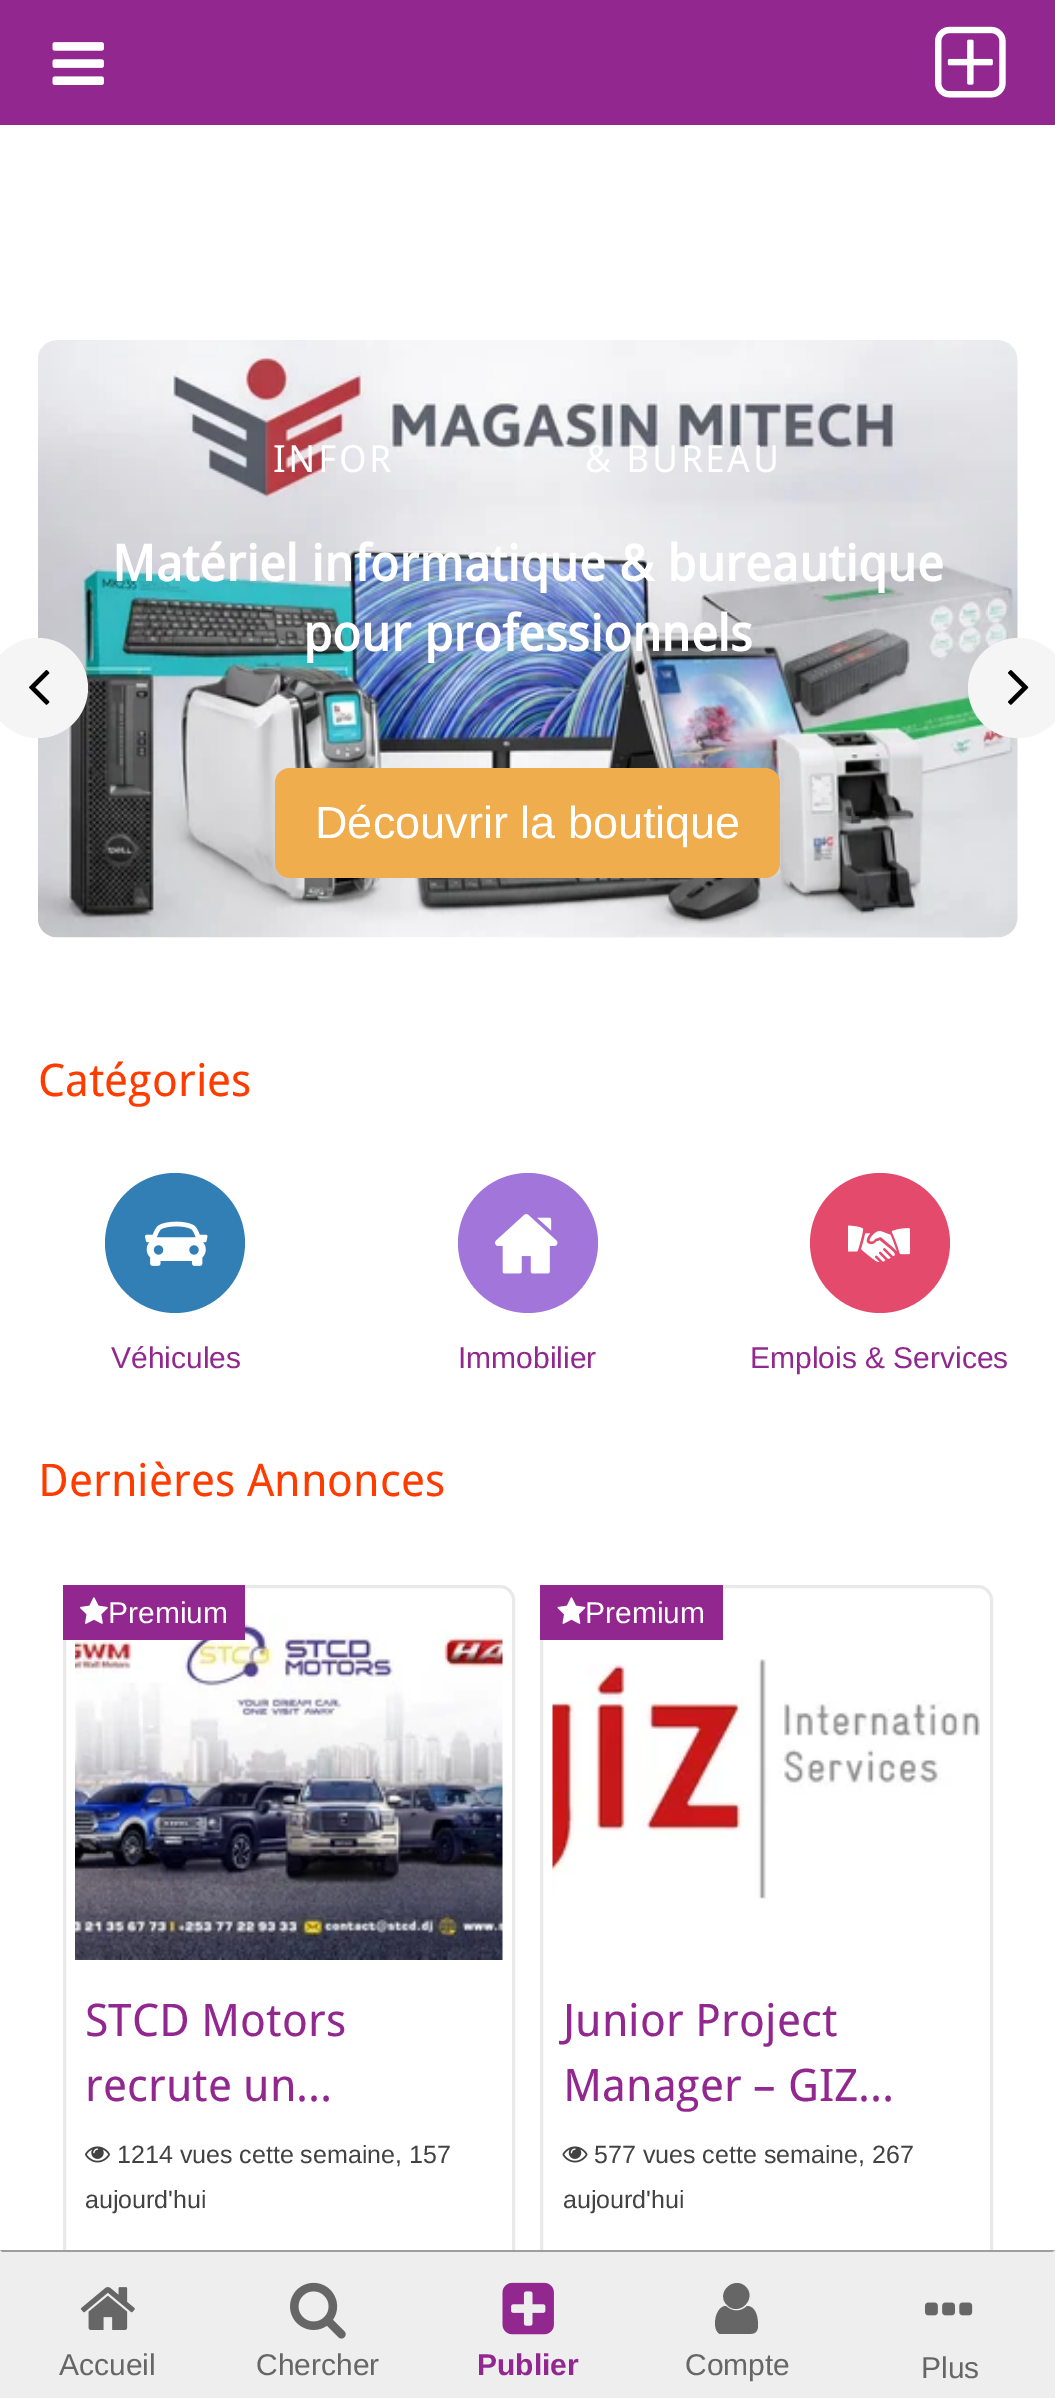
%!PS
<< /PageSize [1055 2398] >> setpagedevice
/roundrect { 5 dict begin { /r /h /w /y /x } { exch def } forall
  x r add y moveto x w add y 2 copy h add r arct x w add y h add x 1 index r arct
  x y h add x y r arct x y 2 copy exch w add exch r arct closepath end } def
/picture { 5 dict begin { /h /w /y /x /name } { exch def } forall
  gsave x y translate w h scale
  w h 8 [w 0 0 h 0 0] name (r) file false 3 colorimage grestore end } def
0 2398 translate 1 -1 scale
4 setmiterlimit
1 setgray
0 0 1055 2398 rectfill
0.573 0.153 0.561 setrgbcolor
0 0 1055 125 rectfill
(img1.rgb) 52 42 52 43 picture
(img2.rgb) 935 26 71 72 picture
(img3.rgb) 38 340 980 598 picture
/DroidSans-Regular [37.5 0 0 -37.5 0 0] selectfont
1 setgray
273 472 moveto 2.5 0 (INFOR) ashow
585 472 moveto 2.5 0 (& BUREAU) ashow
/DroidSans-Bold [50 0 0 -50 0 0] selectfont
112 581 moveto (Matériel informatique & bureautique) show
303 651 moveto (pour professionnels) show
0.941 0.678 0.306 setrgbcolor
275 768 505 110 15 roundrect fill
/LiberationSans-Regular [45 0 0 -45 0 0] selectfont
1 setgray
315 838 moveto (Découvrir la boutique) show
0.961 setgray
newpath 38 688 50 0 360 arc closepath fill
(img4.rgb) 29 670 21 35 picture
newpath 1018 688 50 0 360 arc closepath fill
(img5.rgb) 1008 670 21 35 picture
/DroidSans-Regular [45 0 0 -45 0 0] selectfont
1 0.235 0 setrgbcolor
38 1096 moveto (Catégories) show
0.196 0.498 0.714 setrgbcolor
newpath 175 1243 70 0 360 arc closepath fill
(img6.rgb) 145 1221 63 45 picture
/LiberationSans-Regular [30 0 0 -30 0 0] selectfont
0.573 0.153 0.561 setrgbcolor
111 1368 moveto (Véhicules) show
0.631 0.459 0.851 setrgbcolor
newpath 528 1243 70 0 360 arc closepath fill
(img7.rgb) 495 1214 63 60 picture
0.573 0.153 0.561 setrgbcolor
458 1368 moveto (Immobilier) show
0.89 0.29 0.42 setrgbcolor
newpath 880 1243 70 0 360 arc closepath fill
(img8.rgb) 848 1225 62 37 picture
0.573 0.153 0.561 setrgbcolor
750 1368 moveto (Emplois & Services) show
/DroidSans-Regular [45 0 0 -45 0 0] selectfont
1 0.235 0 setrgbcolor
38 1496 moveto (Dernières Annonces) show
0.914 setgray
3 setlinewidth
64.5 1586.5 449 687 13.5 roundrect stroke
(img10.rgb) 75 1614 428 346 picture
0.573 0.153 0.561 setrgbcolor
63 1585 182 55 rectfill
(img9.rgb) 80 1597 28 27 picture
/LiberationSans-Regular [30 0 0 -30 0 0] selectfont
1 setgray
108 1623 moveto (Premium) show
/DroidSans-Regular [45 0 0 -45 0 0] selectfont
0.573 0.153 0.561 setrgbcolor
85 2036 moveto (STCD Motors) show
85 2101 moveto (recrute un…) show
(img11.rgb) 85 2146 25 17 picture
/LiberationSans-Regular [25 0 0 -25 0 0] selectfont
0.259 setgray
117 2163 moveto (1214 vues cette semaine, 157) show
85 2208 moveto (aujourd'hui) show
0.914 setgray
541.5 1586.5 450 687 13.5 roundrect stroke
0.573 0.153 0.561 setrgbcolor
540 1585 183 55 rectfill
(img12.rgb) 557 1597 29 27 picture
/LiberationSans-Regular [30 0 0 -30 0 0] selectfont
1 setgray
585 1623 moveto (Premium) show
(img13.rgb) 552 1659 428 240 picture
/DroidSans-Regular [45 0 0 -45 0 0] selectfont
0.573 0.153 0.561 setrgbcolor
563 2036 moveto (Junior Project) show
563 2101 moveto (Manager – GIZ…) show
(img14.rgb) 562 2146 26 17 picture
/LiberationSans-Regular [25 0 0 -25 0 0] selectfont
0.259 setgray
594 2163 moveto (577 vues cette semaine, 267) show
563 2208 moveto (aujourd'hui) show
0.933 setgray
0 2250 1055 148 rectfill
0.62 setgray
newpath 0 2250 moveto 1055 2250 lineto 1052 2252 lineto 2 2252 lineto closepath fill
(img15.rgb) 80 2287 55 43 picture
/LiberationSans-Regular [30 0 0 -30 0 0] selectfont
0.4 setgray
59 2375 moveto (Accueil) show
(img16.rgb) 290 2282 56 57 picture
256 2375 moveto (Chercher) show
(img17.rgb) 502 2282 52 53 picture
/LiberationSans-Bold [30 0 0 -30 0 0] selectfont
0.573 0.153 0.561 setrgbcolor
477 2375 moveto (Publier) show
0.4 setgray
newpath 758 2325 moveto 758 2334 753 2334 746 2334 curveto 720 2334 lineto 711 2330 715 2306 726 2306 curveto 732 2312 741 2312 747 2306 curveto 756 2306 758 2318 758 2325 curveto closepath 746 2287 moveto 757 2299 739 2317 727 2305 curveto 715 2293 734 2275 746 2287 curveto closepath fill
/LiberationSans-Regular [30 0 0 -30 0 0] selectfont
685 2375 moveto (Compte) show
(img18.rgb) 925 2302 48 14 picture
921 2378 moveto (Plus) show
showpage
